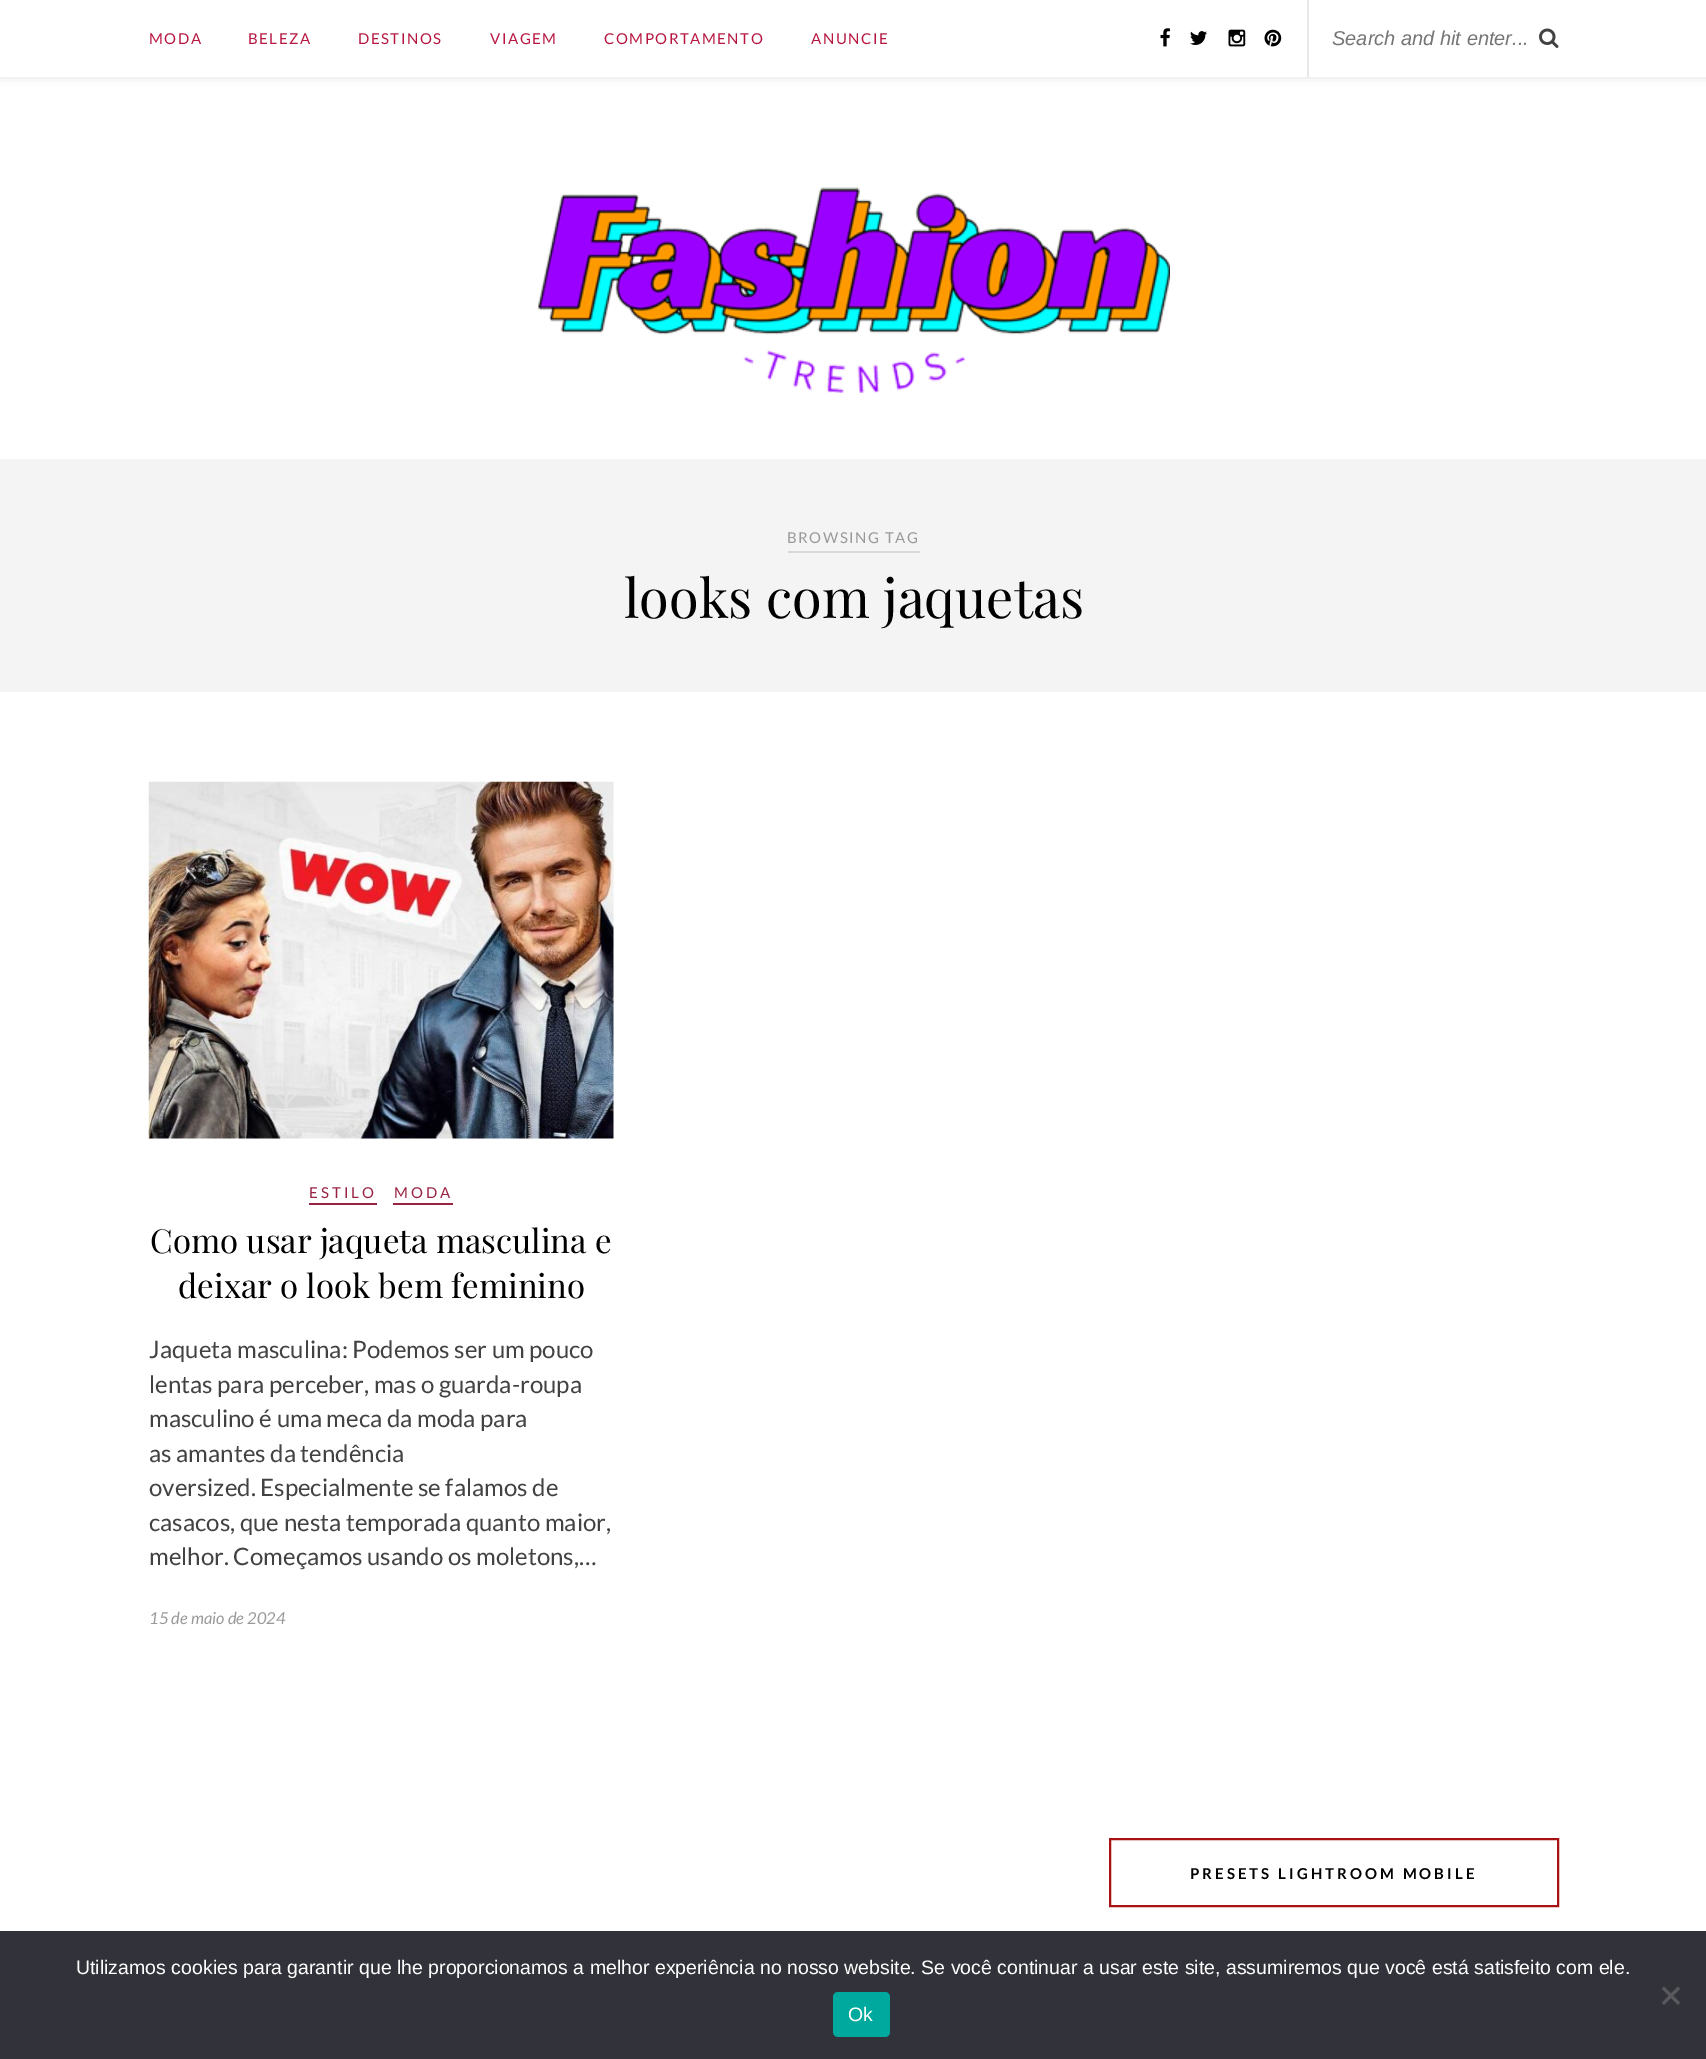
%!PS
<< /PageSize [1706 2059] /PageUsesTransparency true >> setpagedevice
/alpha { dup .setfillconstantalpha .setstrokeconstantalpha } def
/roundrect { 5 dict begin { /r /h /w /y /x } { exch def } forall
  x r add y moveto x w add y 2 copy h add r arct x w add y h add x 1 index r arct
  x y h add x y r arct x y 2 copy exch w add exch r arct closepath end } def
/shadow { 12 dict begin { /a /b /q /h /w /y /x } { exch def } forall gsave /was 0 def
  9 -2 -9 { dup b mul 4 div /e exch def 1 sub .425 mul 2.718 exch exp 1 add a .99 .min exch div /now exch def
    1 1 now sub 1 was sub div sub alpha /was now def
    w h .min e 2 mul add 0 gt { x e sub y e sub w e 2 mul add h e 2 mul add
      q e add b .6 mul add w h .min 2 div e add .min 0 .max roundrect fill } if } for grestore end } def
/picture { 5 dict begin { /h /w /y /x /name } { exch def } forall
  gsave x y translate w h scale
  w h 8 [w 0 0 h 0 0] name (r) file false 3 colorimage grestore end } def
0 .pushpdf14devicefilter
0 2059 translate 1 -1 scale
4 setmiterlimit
1 setgray
0 0 1706 2059 rectfill
0.745 setgray
0 2 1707 76 0 4 0.46 shadow
1 setgray
0 0 1706 77 rectfill
/Lato-Regular [15 0 0 -15 0 0] selectfont
0.718 0.086 0.255 setrgbcolor
149 44 moveto 1.5 0 (MODA) ashow
248 44 moveto 1.5 0 (BELEZA) ashow
358 44 moveto 1.5 0 (DESTINOS) ashow
490 44 moveto 1.5 0 (VIAGEM) ashow
604 44 moveto 1.5 0 (COMPORTAMENTO) ashow
811 44 moveto 1.5 0 (ANUNCIE) ashow
(img1.rgb) 1160 28 10 19 picture
(img2.rgb) 1190 31 17 14 picture
(img3.rgb) 1228 29 18 18 picture
(img4.rgb) 1264 29 18 18 picture
0.91 setgray
1307 0 2 77 rectfill
/LiberationSans-Italic [20 0 0 -20 0 0] selectfont
0.459 setgray
1332 45 moveto (Search and hit enter...) show
(img5.rgb) 1539 28 20 20 picture
(img6.rgb) 538 187 632 206 picture
0.957 setgray
0 459 1706 233 rectfill
0.847 setgray
788 551 132 2 rectfill
/Lato-Regular [15 0 0 -15 0 0] selectfont
0.6 setgray
787 543 moveto 1.5 0 (BROWSING TAG) ashow
/PlayfairDisplay-Regular [54 0 0 -54 0 0] selectfont
0 setgray
624 618 moveto (looks com jaquetas) show
(img7.rgb) 148 781 466 358 picture
0.6 0.129 0.255 setrgbcolor
309 1203 68 2 rectfill
/Lato-Regular [15 0 0 -15 0 0] selectfont
309 1198 moveto 3 0 (ESTILO) ashow
393 1203 60 2 rectfill
394 1198 moveto 3 0 (MODA) ashow
/PlayfairDisplay-Regular [33 0 0 -33 0 0] selectfont
0 setgray
150 1253 moveto (Como usar jaqueta masculina e) show
178 1298 moveto (deixar o look bem feminino) show
/Lato-Regular [24 0 0 -24 0 0] selectfont
0.259 setgray
149 1358 moveto (Jaqueta masculina: Podemos ser um pouco) show
149 1393 moveto (lentas para perceber, mas o guarda-roupa) show
149 1427 moveto (masculino é uma meca da moda para) show
149 1462 moveto (as amantes da tendência) show
149 1496 moveto (oversized. Especialmente se falamos de) show
149 1531 moveto (casacos, que nesta temporada quanto maior,) show
149 1565 moveto (melhor. Começamos usando os moletons,…) show
/Lato-Italic [16.5 0 0 -16.5 0 0] selectfont
0.6 setgray
149 1624 moveto (15 de maio de 2024) show
0.659 0.071 0.071 setrgbcolor
2 setlinewidth
1110 1839 448 67 rectstroke
/Lato-Bold [15 0 0 -15 0 0] selectfont
0 setgray
1190 1879 moveto 3 0 (PRESETS LIGHTROOM MOBILE) ashow
0.196 0.196 0.227 setrgbcolor
0 1931 1706 128 rectfill
/LiberationSans-Regular [19.5 0 0 -19.5 0 0] selectfont
1 setgray
76 1974 moveto (Utilizamos cookies para garantir que lhe proporcionamos a melhor experiência no nosso website. Se você continuar a usar este site, assumiremos que você está satisfeito com ele.) show
0.349 0.349 0.365 setrgbcolor
newpath 1678 1986.5 moveto 1680 1989 lineto 1664 2005 lineto 1662 2002.5 lineto closepath fill
newpath 1662 1989 moveto 1664 1986.5 lineto 1680 2002.5 lineto 1678 2005 lineto closepath fill
0 0.663 0.616 setrgbcolor
833 1992 57 45 5 roundrect fill
1 setgray
848 2021 moveto (Ok) show
.poppdf14devicefilter showpage
